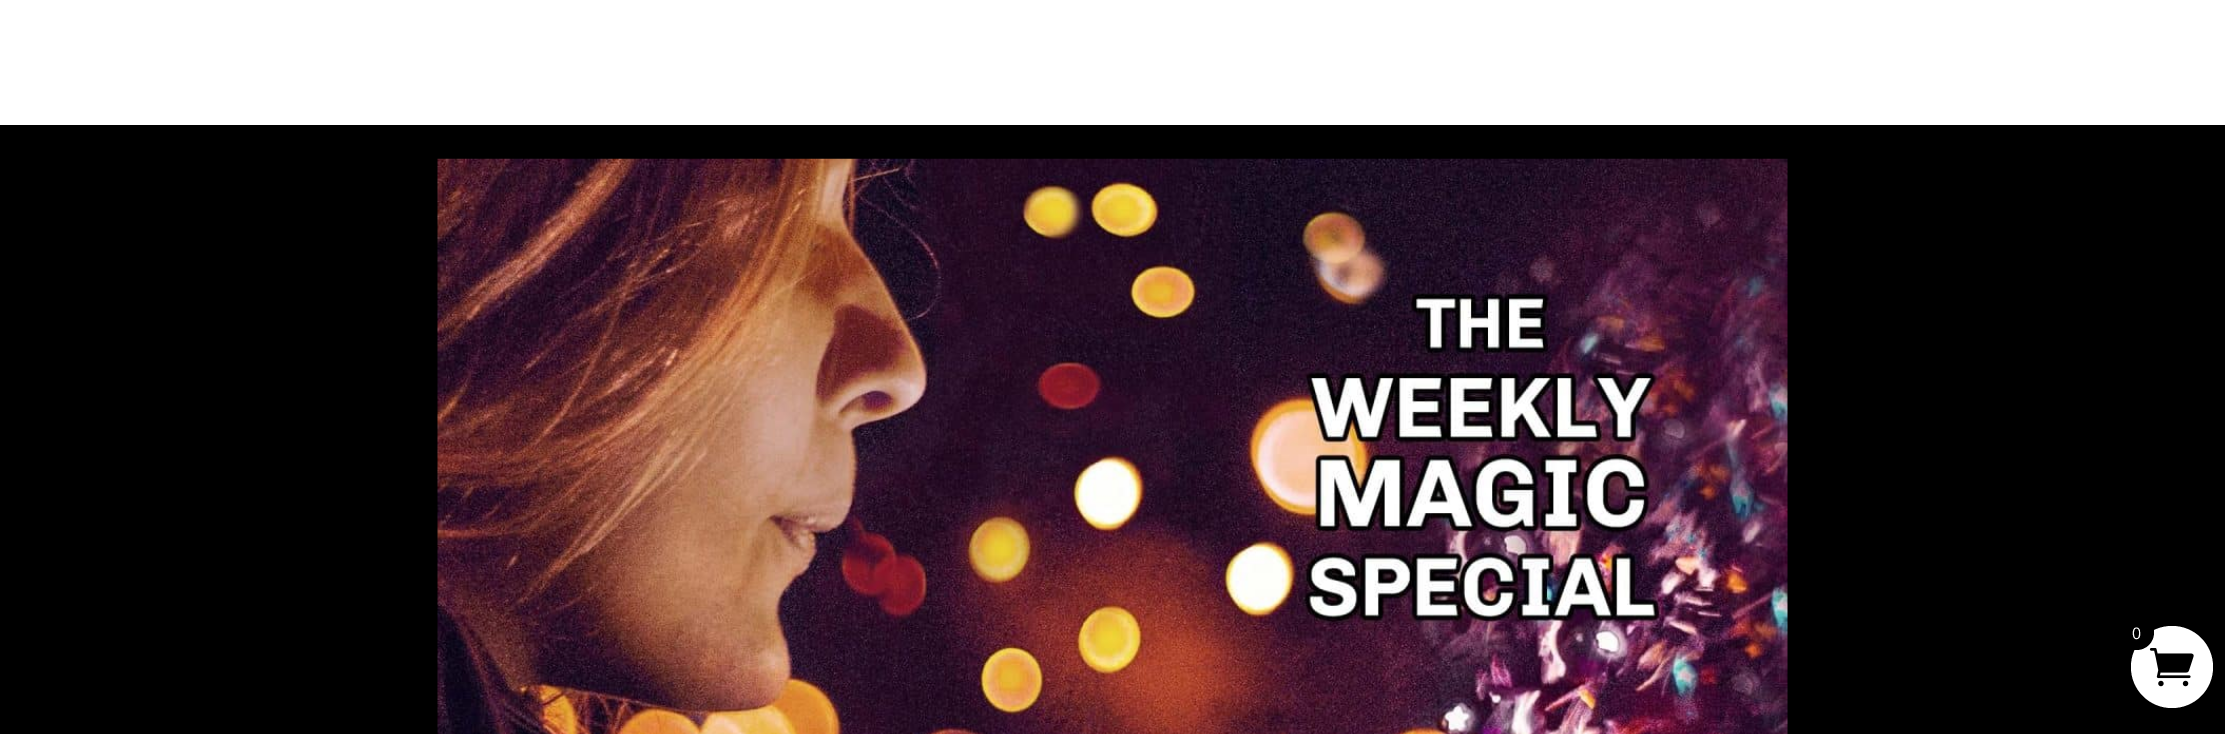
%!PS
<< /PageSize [2225 734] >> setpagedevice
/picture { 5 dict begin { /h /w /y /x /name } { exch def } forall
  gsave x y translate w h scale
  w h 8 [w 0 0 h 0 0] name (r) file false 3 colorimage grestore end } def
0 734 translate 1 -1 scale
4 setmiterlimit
1 setgray
0 0 2225 734 rectfill
0 setgray
0 125 2225 609 rectfill
(img1.rgb) 437 158 1351 576 picture
1 setgray
newpath 2172 667 41 0 360 arc closepath fill
(img2.rgb) 2149 648 45 39 picture
0 setgray
newpath 2136.5 632.5 17.5 0 360 arc closepath fill
/OpenSans-Regular [16 0 0 -16 0 0] selectfont
1 setgray
2132 639 moveto (0) show
showpage
